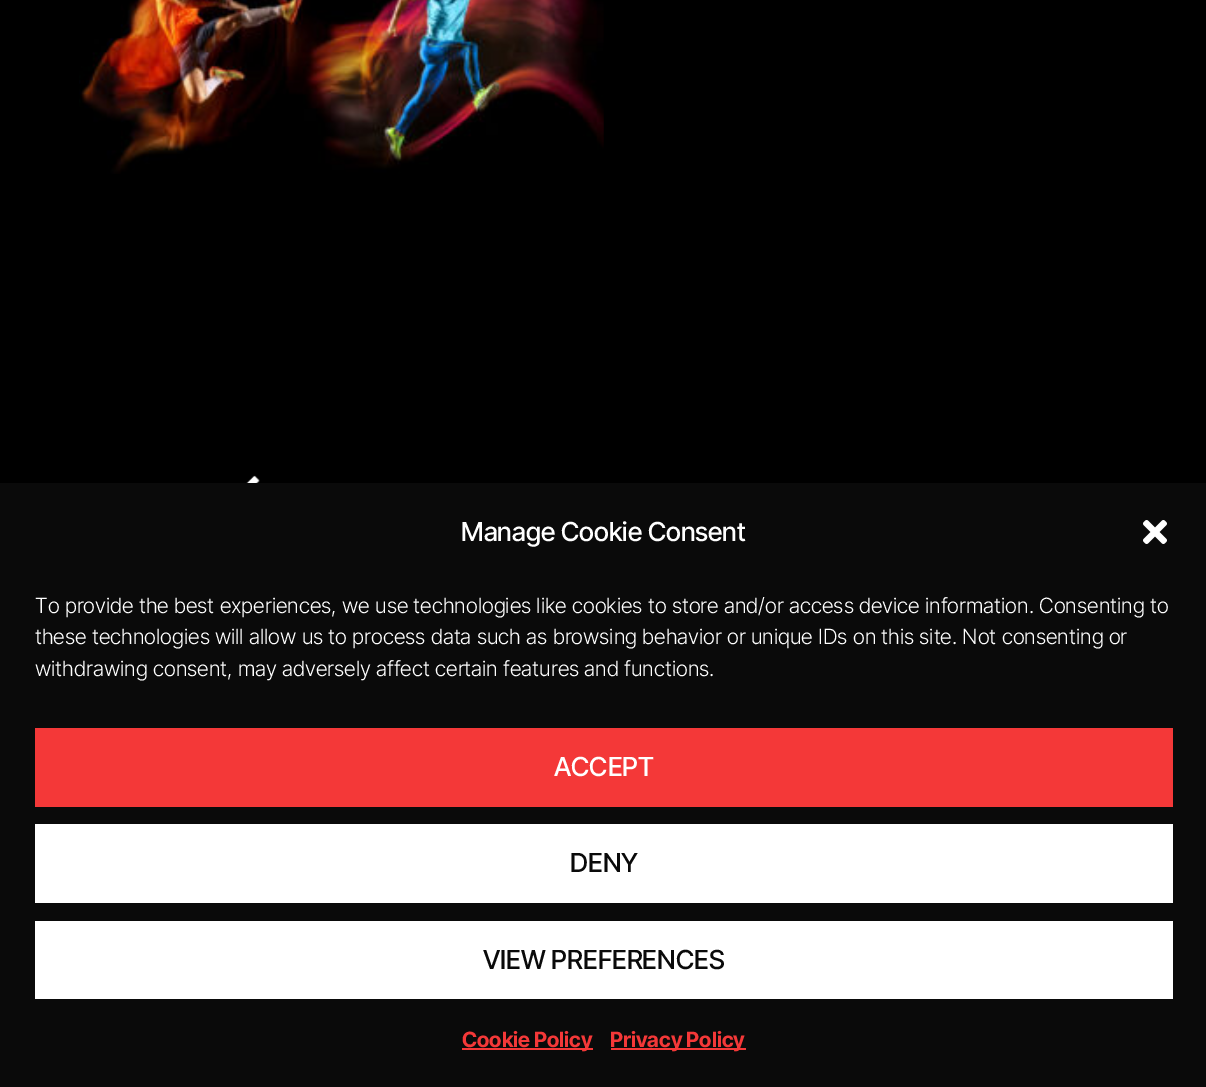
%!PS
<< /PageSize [1206 1087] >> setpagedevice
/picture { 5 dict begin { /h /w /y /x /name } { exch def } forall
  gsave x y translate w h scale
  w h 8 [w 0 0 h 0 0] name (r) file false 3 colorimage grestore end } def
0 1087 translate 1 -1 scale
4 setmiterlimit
0 setgray
0 0 1206 1087 rectfill
(img1.rgb) 79 0 525 174 picture
(img2.rgb) 246 475 14 8 picture
0.039 setgray
0 483 1206 604 rectfill
/InterTight-Medium [26.25 0 0 -26.25 0 0] selectfont
1 setgray
461 541 moveto (Manage Cookie Consent) show
(img3.rgb) 1143 520 24 24 picture
/InterTight-Light [21 0 0 -21 0 0] selectfont
35 613 moveto (To provide the best experiences, we use technologies like cookies to store and/or access device information. Consenting to) show
35 644 moveto (these technologies will allow us to process data such as browsing behavior or unique IDs on this site. Not consenting or) show
35 676 moveto (withdrawing consent, may adversely affect certain features and functions.) show
0.957 0.22 0.22 setrgbcolor
35 728 1138 79 rectfill
/InterTight-Medium [26.25 0 0 -26.25 0 0] selectfont
1 setgray
554 776 moveto (ACCEPT) show
35 824 1138 79 rectfill
0.039 setgray
570 872 moveto (DENY) show
1 setgray
35 921 1138 78 rectfill
0.039 setgray
483 969 moveto (VIEW PREFERENCES) show
0.957 0.22 0.22 setrgbcolor
462 1048 131 2 rectfill
/InterTight-Bold [21 0 0 -21 0 0] selectfont
462 1047 moveto (Cookie Policy) show
611 1048 135 2 rectfill
610 1047 moveto (Privacy Policy) show
showpage
